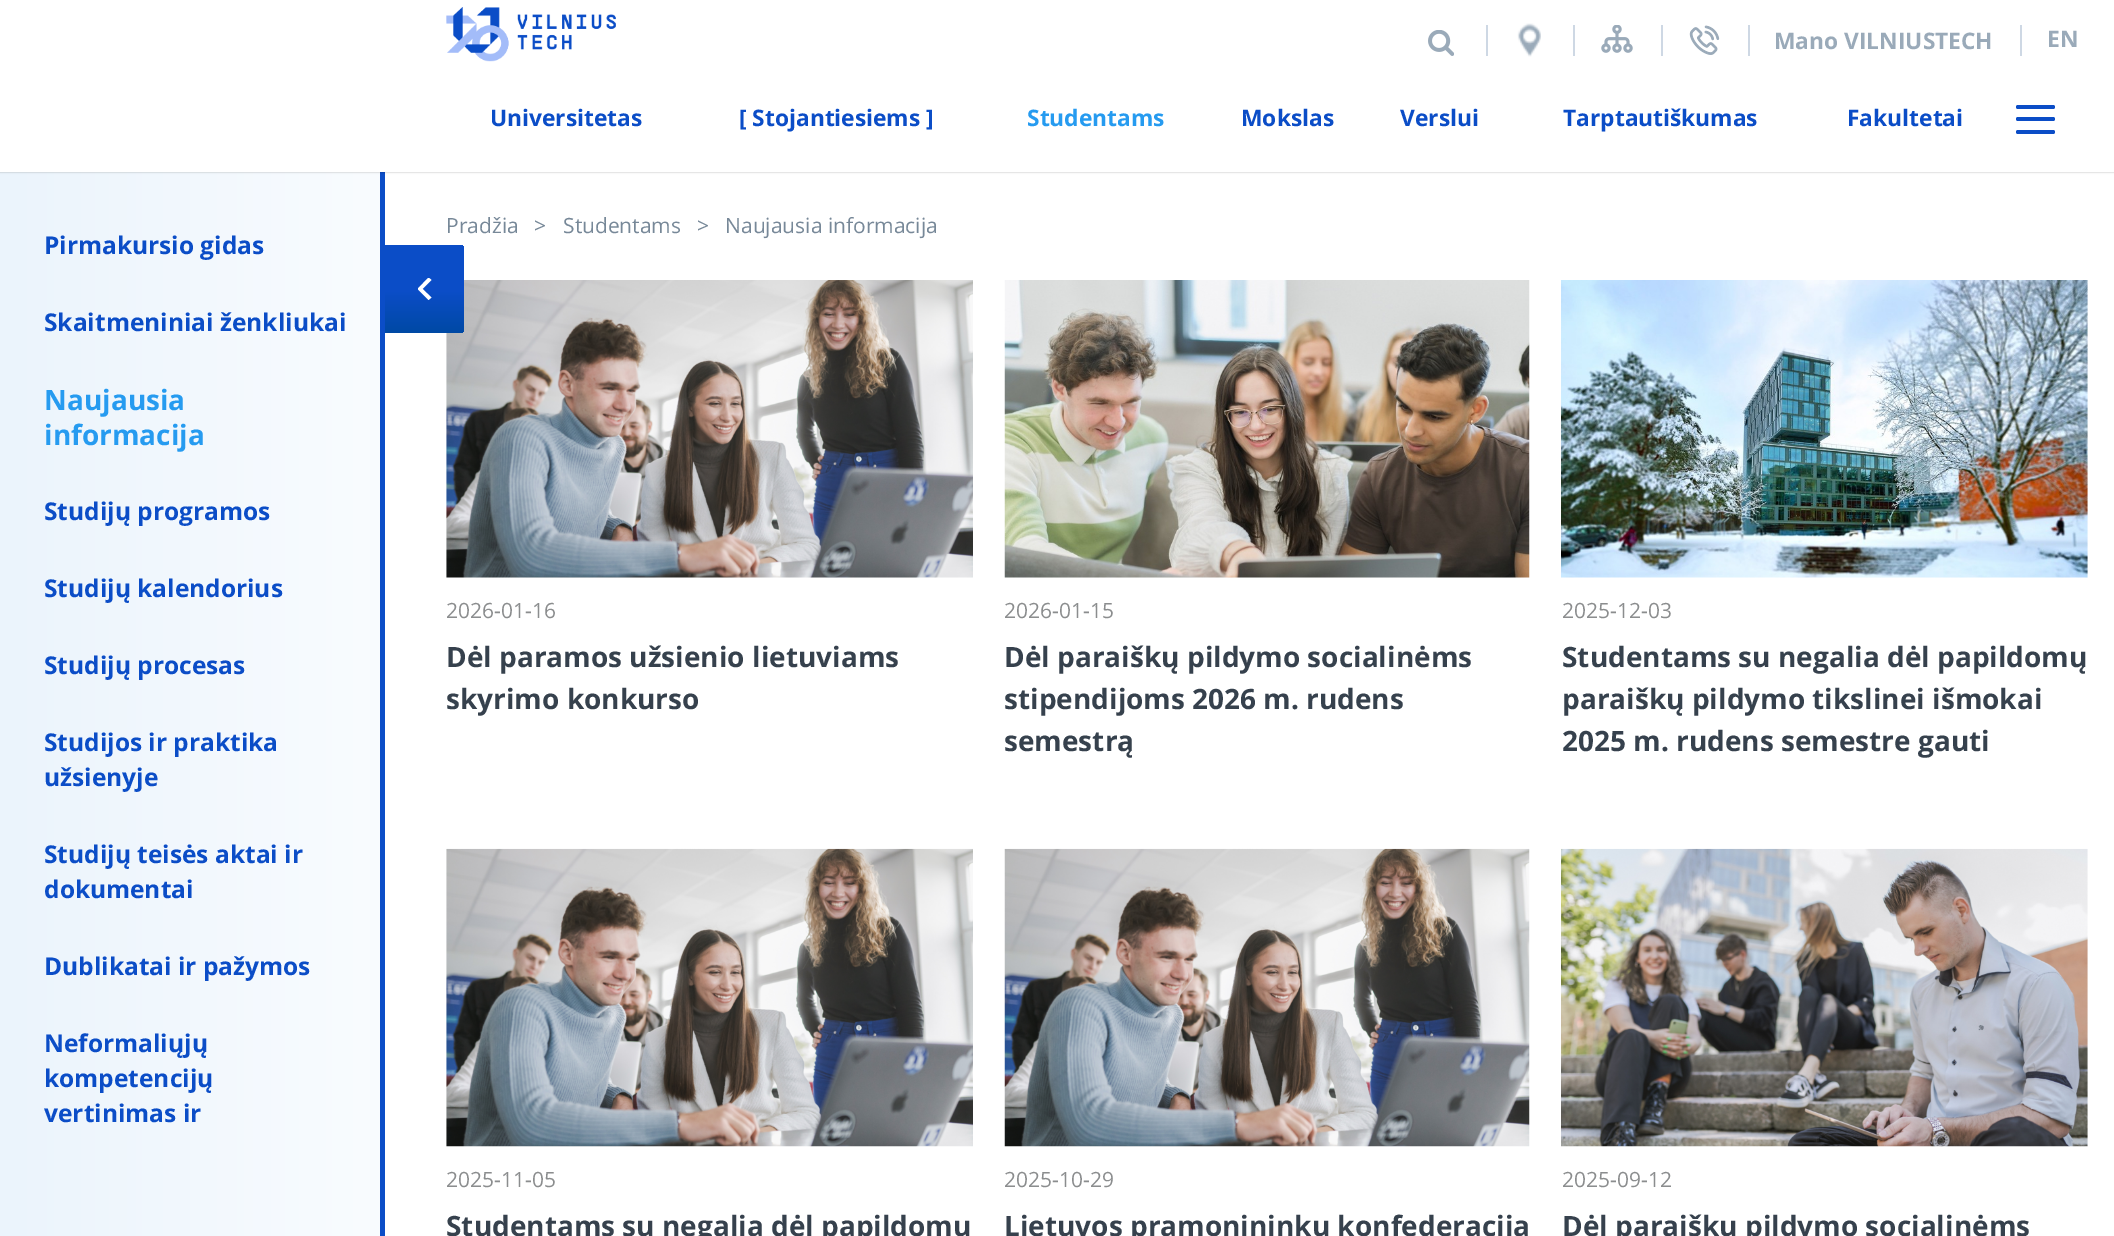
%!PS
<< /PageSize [2114 1236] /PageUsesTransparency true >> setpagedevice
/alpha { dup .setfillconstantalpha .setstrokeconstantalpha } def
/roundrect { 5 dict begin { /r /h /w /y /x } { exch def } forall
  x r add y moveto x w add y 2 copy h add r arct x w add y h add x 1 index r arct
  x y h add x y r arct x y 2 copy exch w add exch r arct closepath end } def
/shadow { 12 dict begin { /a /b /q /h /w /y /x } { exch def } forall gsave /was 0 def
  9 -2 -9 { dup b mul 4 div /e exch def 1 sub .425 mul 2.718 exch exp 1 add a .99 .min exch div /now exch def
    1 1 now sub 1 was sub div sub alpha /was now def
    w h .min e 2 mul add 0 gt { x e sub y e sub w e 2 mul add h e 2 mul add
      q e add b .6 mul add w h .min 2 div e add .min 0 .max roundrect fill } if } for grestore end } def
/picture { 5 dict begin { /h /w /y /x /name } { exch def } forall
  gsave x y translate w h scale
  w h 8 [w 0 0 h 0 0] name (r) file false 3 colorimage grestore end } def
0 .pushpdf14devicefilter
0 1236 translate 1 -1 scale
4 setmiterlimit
1 setgray
0 0 2114 1236 rectfill
gsave newpath 0 172 moveto 380 172 lineto 380 1236 lineto 0 1236 lineto closepath clip newpath
<< /ShadingType 2 /ColorSpace /DeviceRGB /Coords [380 619 0 619] /Extend [true true] /Function << /FunctionType 2 /Domain [0 1] /C0 [0.976 0.988 1] /C1 [0.922 0.957 0.988] /N 1 >> >> shfill grestore
0.043 0.302 0.78 setrgbcolor
380 172 5 1064 rectfill
0 setgray
0 2 2114 170 0 1 0.3 shadow
1 setgray
0 0 2114 172 rectfill
(img1.rgb) 446 7 170 55 picture
(img2.rgb) 1428 30 26 26 picture
0.808 0.847 0.894 setrgbcolor
1486 25 2 31 rectfill
(img3.rgb) 1517 23 24 34 picture
1573 25 2 31 rectfill
(img4.rgb) 1601 25 32 28 picture
1661 25 2 31 rectfill
(img5.rgb) 1689 25 31 30 picture
1748 25 2 31 rectfill
/OpenSans-Bold [22.75 0 0 -22.75 0 0] selectfont
0.604 0.667 0.725 setrgbcolor
1774 49 moveto (Mano VILNIUSTECH) show
0.808 0.847 0.894 setrgbcolor
2020 25 2 31 rectfill
0.604 0.667 0.725 setrgbcolor
2047 47 moveto (EN) show
0.043 0.302 0.78 setrgbcolor
490 126 moveto (Universitetas) show
739 126 moveto ([ Stojantiesiems ]) show
0.149 0.608 0.941 setrgbcolor
1027 126 moveto (Studentams) show
0.043 0.302 0.78 setrgbcolor
1241 126 moveto (Mokslas) show
1400 126 moveto (Verslui) show
1563 126 moveto (Tarptautiškumas) show
1847 126 moveto (Fakultetai) show
2016 105 39 4 2 roundrect fill
2016 117 39 4 2 roundrect fill
2016 130 39 4 2 roundrect fill
/OpenSans-Regular [21 0 0 -21 0 0] selectfont
0.467 0.533 0.596 setrgbcolor
446 233 moveto (Pradžia) show
534 233 moveto (>) show
563 233 moveto (Studentams) show
697 233 moveto (>) show
725 233 moveto (Naujausia informacija) show
/OpenSans-Bold [24.5 0 0 -24.5 0 0] selectfont
0.043 0.302 0.78 setrgbcolor
44 254 moveto (Pirmakursio gidas) show
44 331 moveto (Skaitmeniniai ženkliukai) show
/OpenSans-Bold [28 0 0 -28 0 0] selectfont
0.149 0.608 0.941 setrgbcolor
44 410 moveto (Naujausia) show
44 445 moveto (informacija) show
/OpenSans-Bold [24.5 0 0 -24.5 0 0] selectfont
0.043 0.302 0.78 setrgbcolor
44 520 moveto (Studijų programos) show
44 597 moveto (Studijų kalendorius) show
44 674 moveto (Studijų procesas) show
44 751 moveto (Studijos ir praktika) show
44 786 moveto (užsienyje) show
44 863 moveto (Studijų teisės aktai ir) show
44 898 moveto (dokumentai) show
44 975 moveto (Dublikatai ir pažymos) show
44 1052 moveto (Neformaliųjų) show
44 1087 moveto (kompetencijų) show
44 1122 moveto (vertinimas ir) show
(img6.rgb) 446 280 527 298 picture
gsave newpath 385 245 moveto 459 245 lineto 462 245 464 247 464 250 curveto 464 328 lineto 464 331 462 333 459 333 curveto 385 333 lineto closepath clip newpath
<< /ShadingType 2 /ColorSpace /DeviceRGB /Coords [424 245 424 333] /Extend [true true] /Function << /FunctionType 3 /Domain [0 1] /Functions [<< /FunctionType 2 /Domain [0 1] /C0 [0.043 0.302 0.78] /C1 [0.043 0.302 0.78] /N 1 >> << /FunctionType 2 /Domain [0 1] /C0 [0.043 0.302 0.78] /C1 [0 0.286 0.643] /N 1 >>] /Bounds [0.53] /Encode [0 1 0 1] >> >> shfill grestore
gsave
418 278 14 23 rectclip
1 setgray
newpath 428.5 277.5 moveto 431.5 280 lineto 422.5 289 lineto 431.5 297.5 lineto 428.5 300 lineto 417.5 289 lineto closepath fill
grestore
/OpenSans-Regular [21 0 0 -21 0 0] selectfont
0.545 0.553 0.557 setrgbcolor
446 618 moveto (2026-01-16) show
/OpenSans-Bold [28 0 0 -28 0 0] selectfont
0.212 0.255 0.302 setrgbcolor
446 667 moveto (Dėl paramos užsienio lietuviams) show
446 709 moveto (skyrimo konkurso) show
(img7.rgb) 1004 280 526 298 picture
/OpenSans-Regular [21 0 0 -21 0 0] selectfont
0.545 0.553 0.557 setrgbcolor
1004 618 moveto (2026-01-15) show
/OpenSans-Bold [28 0 0 -28 0 0] selectfont
0.212 0.255 0.302 setrgbcolor
1004 667 moveto (Dėl paraiškų pildymo socialinėms) show
1004 709 moveto (stipendijoms 2026 m. rudens) show
1004 751 moveto (semestrą) show
(img8.rgb) 1561 280 527 298 picture
/OpenSans-Regular [21 0 0 -21 0 0] selectfont
0.545 0.553 0.557 setrgbcolor
1562 618 moveto (2025-12-03) show
/OpenSans-Bold [28 0 0 -28 0 0] selectfont
0.212 0.255 0.302 setrgbcolor
1562 667 moveto (Studentams su negalia dėl papildomų) show
1562 709 moveto (paraiškų pildymo tikslinei išmokai) show
1562 751 moveto (2025 m. rudens semestre gauti) show
(img9.rgb) 446 848 527 299 picture
/OpenSans-Regular [21 0 0 -21 0 0] selectfont
0.545 0.553 0.557 setrgbcolor
446 1187 moveto (2025-11-05) show
/OpenSans-Bold [28 0 0 -28 0 0] selectfont
0.212 0.255 0.302 setrgbcolor
446 1236 moveto (Studentams su negalia dėl papildomų) show
(img10.rgb) 1004 848 526 299 picture
/OpenSans-Regular [21 0 0 -21 0 0] selectfont
0.545 0.553 0.557 setrgbcolor
1004 1187 moveto (2025-10-29) show
/OpenSans-Bold [28 0 0 -28 0 0] selectfont
0.212 0.255 0.302 setrgbcolor
1004 1236 moveto (Lietuvos pramonininkų konfederacija) show
(img11.rgb) 1561 848 527 299 picture
/OpenSans-Regular [21 0 0 -21 0 0] selectfont
0.545 0.553 0.557 setrgbcolor
1562 1187 moveto (2025-09-12) show
/OpenSans-Bold [28 0 0 -28 0 0] selectfont
0.212 0.255 0.302 setrgbcolor
1562 1236 moveto (Dėl paraiškų pildymo socialinėms) show
.poppdf14devicefilter showpage
